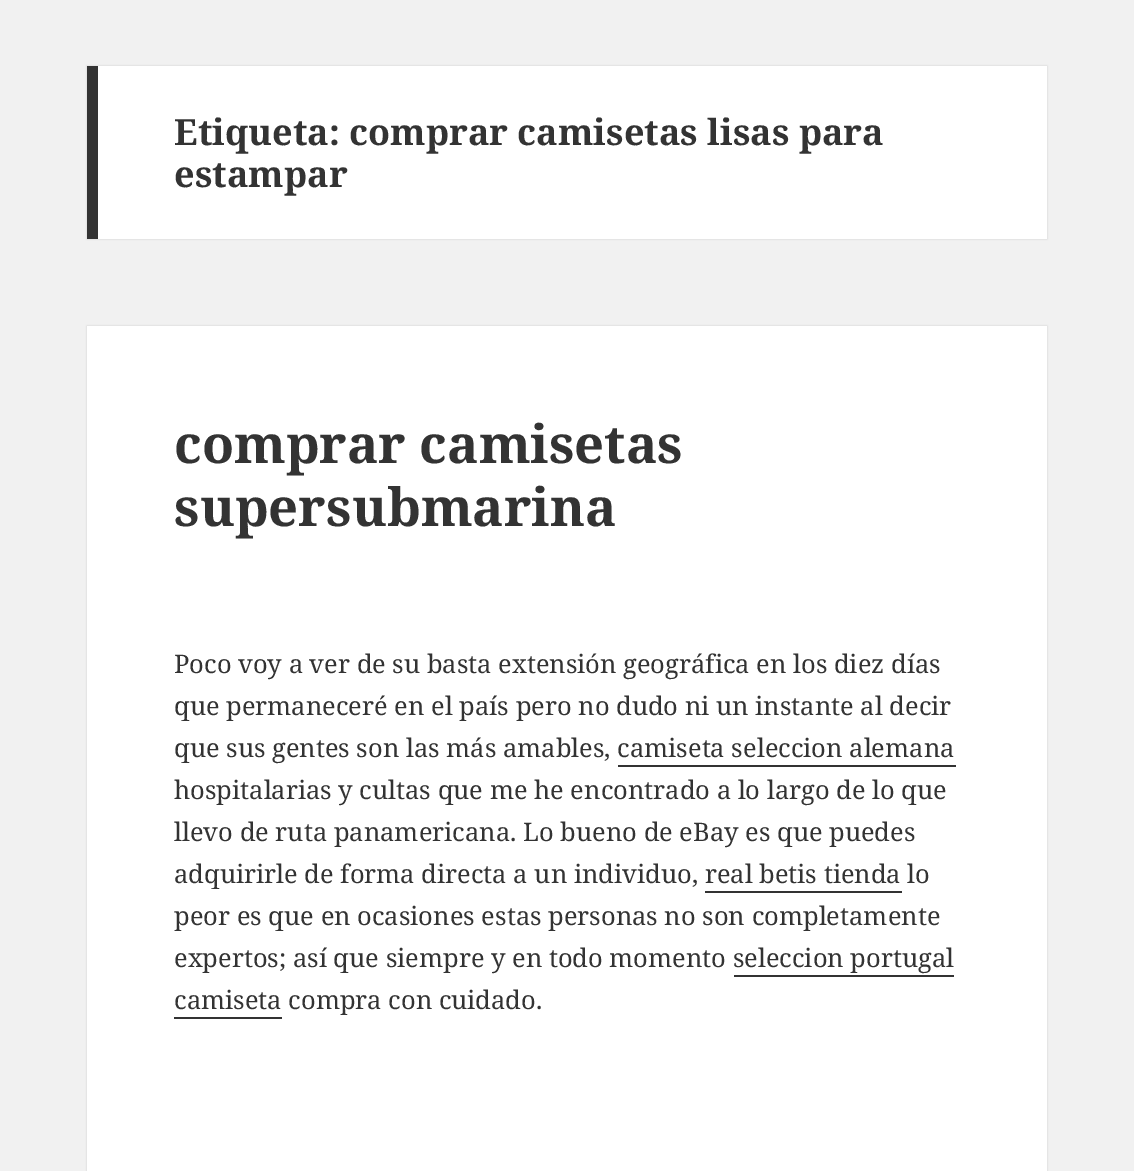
%!PS
<< /PageSize [1134 1171] /PageUsesTransparency true >> setpagedevice
/alpha { dup .setfillconstantalpha .setstrokeconstantalpha } def
/roundrect { 5 dict begin { /r /h /w /y /x } { exch def } forall
  x r add y moveto x w add y 2 copy h add r arct x w add y h add x 1 index r arct
  x y h add x y r arct x y 2 copy exch w add exch r arct closepath end } def
/shadow { 12 dict begin { /a /b /q /h /w /y /x } { exch def } forall gsave /was 0 def
  9 -2 -9 { dup b mul 4 div /e exch def 1 sub .425 mul 2.718 exch exp 1 add a .99 .min exch div /now exch def
    1 1 now sub 1 was sub div sub alpha /was now def
    w h .min e 2 mul add 0 gt { x e sub y e sub w e 2 mul add h e 2 mul add
      q e add b .6 mul add w h .min 2 div e add .min 0 .max roundrect fill } if } for grestore end } def
0 .pushpdf14devicefilter
0 1171 translate 1 -1 scale
4 setmiterlimit
0.945 setgray
0 0 1134 1171 rectfill
0 setgray
87 66 960 173 0 1 0.15 shadow
1 setgray
98 66 949 173 rectfill
0.2 setgray
87 66 11 173 rectfill
/NotoSerif-Bold [36 0 0 -36 0 0] selectfont
174 145 moveto (Etiqueta: comprar camisetas lisas para) show
174 187 moveto (estampar) show
0 setgray
87 326 960 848 0 1 0.15 shadow
1 setgray
87 326 960 845 rectfill
/NotoSerif-Bold [52.5 0 0 -52.5 0 0] selectfont
0.2 setgray
174 463 moveto (comprar camisetas) show
174 526 moveto (supersubmarina) show
/NotoSerif-Regular [25.5 0 0 -25.5 0 0] selectfont
174 673 moveto (Poco voy a ver de su basta extensión geográfica en los diez días) show
174 715 moveto (que permaneceré en el país pero no dudo ni un instante al decir) show
174 757 moveto (que sus gentes son las más amables, camiseta seleccion alemana) show
618 765 338 2 rectfill
174 799 moveto (hospitalarias y cultas que me he encontrado a lo largo de lo que) show
174 841 moveto (llevo de ruta panamericana. Lo bueno de eBay es que puedes) show
174 883 moveto (adquirirle de forma directa a un individuo, real betis tienda lo) show
705 891 197 2 rectfill
174 925 moveto (peor es que en ocasiones estas personas no son completamente) show
174 967 moveto (expertos; así que siempre y en todo momento seleccion portugal) show
174 1009 moveto (camiseta compra con cuidado.) show
734 975 220 2 rectfill
174 1017 108 2 rectfill
.poppdf14devicefilter showpage
